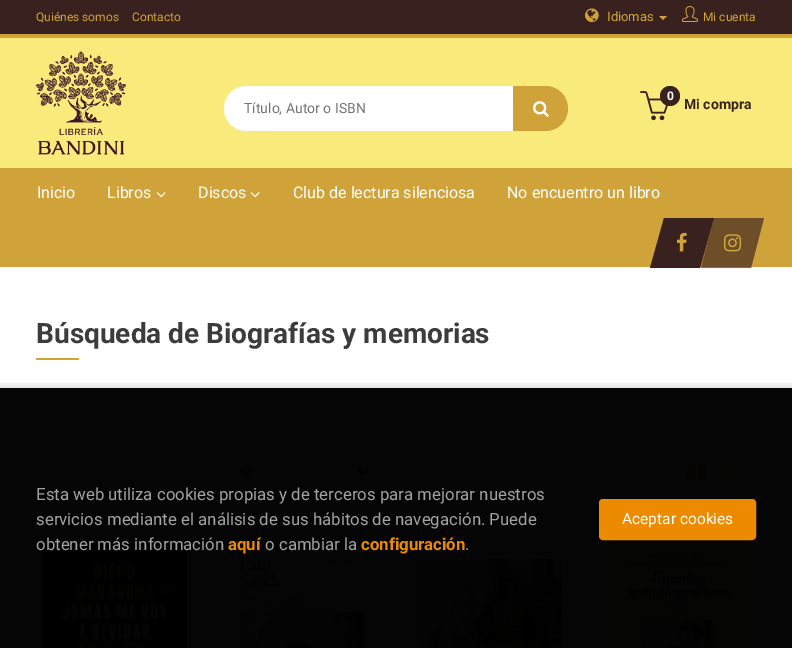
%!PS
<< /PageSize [792 648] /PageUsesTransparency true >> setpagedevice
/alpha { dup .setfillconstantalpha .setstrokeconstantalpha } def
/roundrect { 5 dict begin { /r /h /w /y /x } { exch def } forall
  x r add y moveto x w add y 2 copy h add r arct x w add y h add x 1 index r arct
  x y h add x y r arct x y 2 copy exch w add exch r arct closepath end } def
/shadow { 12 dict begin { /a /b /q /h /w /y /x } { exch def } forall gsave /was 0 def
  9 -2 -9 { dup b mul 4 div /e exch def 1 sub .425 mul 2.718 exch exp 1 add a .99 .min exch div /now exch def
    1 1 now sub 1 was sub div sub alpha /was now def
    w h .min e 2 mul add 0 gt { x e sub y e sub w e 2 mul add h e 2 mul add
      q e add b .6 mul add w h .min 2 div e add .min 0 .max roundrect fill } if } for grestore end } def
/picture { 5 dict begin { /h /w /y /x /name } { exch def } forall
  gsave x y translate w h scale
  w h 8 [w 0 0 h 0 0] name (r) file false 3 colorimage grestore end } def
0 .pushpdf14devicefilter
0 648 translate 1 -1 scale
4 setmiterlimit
1 setgray
0 0 792 648 rectfill
0.02 setgray
0 388 792 260 rectfill
0.22 0.129 0.122 setrgbcolor
0 0 792 34 rectfill
0.816 0.639 0.227 setrgbcolor
0 34 792 4 rectfill
/Roboto-Regular [12 0 0 -12 0 0] selectfont
36 21 moveto (Quiénes somos) show
132 21 moveto (Contacto) show
(img1.rgb) 585 8 14 15 picture
/Roboto-Regular [13 0 0 -13 0 0] selectfont
607 21 moveto (Idiomas) show
newpath 659 16 moveto 667 16 lineto 663 20 lineto closepath fill
(img2.rgb) 682 6 16 16 picture
/Roboto-Regular [12 0 0 -12 0 0] selectfont
703 21 moveto (Mi cuenta) show
0.976 0.918 0.486 setrgbcolor
0 38 792 130 rectfill
(img3.rgb) 36 51 90 104 picture
1 setgray
newpath 246.5 86 moveto 513 86 lineto 513 131 lineto 246.5 131 lineto 234 131 224 121 224 108.5 curveto 224 96 234 86 246.5 86 curveto closepath fill
/Roboto-Regular [14 0 0 -14 0 0] selectfont
0.459 setgray
244 113 moveto (Título, Autor o ISBN) show
0.816 0.639 0.227 setrgbcolor
newpath 513 86 moveto 545.5 86 lineto 558 86 568 96 568 108.5 curveto 568 121 558 131 545.5 131 curveto 513 131 lineto closepath fill
(img4.rgb) 533 101 16 16 picture
(img5.rgb) 640 91 28 30 picture
0.22 0.129 0.122 setrgbcolor
newpath 670 96 10 0 360 arc closepath fill
/Roboto-Bold [12 0 0 -12 0 0] selectfont
1 setgray
667 100 moveto (0) show
/Roboto-Bold [14 0 0 -14 0 0] selectfont
0.22 0.129 0.122 setrgbcolor
684 109 moveto (Mi compra) show
0.816 0.639 0.227 setrgbcolor
0 168 792 99 rectfill
/Roboto-Regular [16 0 0 -16 0 0] selectfont
1 setgray
37 198 moveto (Inicio) show
107 198 moveto (Libros) show
(img6.rgb) 156 192 10 6 picture
198 198 moveto (Discos) show
(img6.rgb) 250 192 10 6 picture
293 198 moveto (Club de lectura silenciosa) show
507 198 moveto (No encuentro un libro) show
0.22 0.129 0.122 setrgbcolor
newpath 664 218 moveto 714 218 lineto 700 268 lineto 650 268 lineto closepath fill
(img7.rgb) 677 232 10 20 picture
0.65 alpha
newpath 714 218 moveto 764 218 lineto 751 268 lineto 701 268 lineto closepath fill
1 alpha
(img8.rgb) 723 234 19 18 picture
/Roboto-Bold [28 0 0 -28 0 0] selectfont
0.235 setgray
36 343 moveto (Búsqueda de Biografías y memorias) show
0.816 0.639 0.227 setrgbcolor
36 358 43 2 rectfill
(img9.rgb) 240 468 13 9 picture
(img9.rgb) 357 468 13 9 picture
(img10.rgb) 687 464 19 16 picture
(img11.rgb) 718 464 20 16 picture
(img12.rgb) 42 544 145 104 picture
(img13.rgb) 230 543 145 105 picture
(img14.rgb) 417 559 145 89 picture
(img15.rgb) 606 540 143 108 picture
gsave
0 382 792 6 rectclip
0 setgray
-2 386 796 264 0 4 0.15 shadow
grestore
/Roboto-Regular [16.8 0 0 -16.8 0 0] selectfont
0.635 setgray
36 500 moveto (Esta web utiliza cookies propias y de terceros para mejorar nuestros) show
36 525 moveto (servicios mediante el análisis de sus hábitos de navegación. Puede) show
36 550 moveto (obtener más información) show
/Roboto-Bold [16.8 0 0 -16.8 0 0] selectfont
0.929 0.545 0 setrgbcolor
228 550 moveto (aquí) show
/Roboto-Regular [16.8 0 0 -16.8 0 0] selectfont
0.635 setgray
265 550 moveto (o cambiar la) show
/Roboto-Bold [16.8 0 0 -16.8 0 0] selectfont
0.929 0.545 0 setrgbcolor
361 550 moveto (configuración) show
/Roboto-Regular [16.8 0 0 -16.8 0 0] selectfont
0.635 setgray
465 550 moveto (.) show
0.929 0.545 0 setrgbcolor
599.5 499.5 156 40 3.5 roundrect gsave fill grestore
stroke
/Roboto-Regular [15.5 0 0 -15.5 0 0] selectfont
1 setgray
622 524 moveto (Aceptar cookies) show
.poppdf14devicefilter showpage
